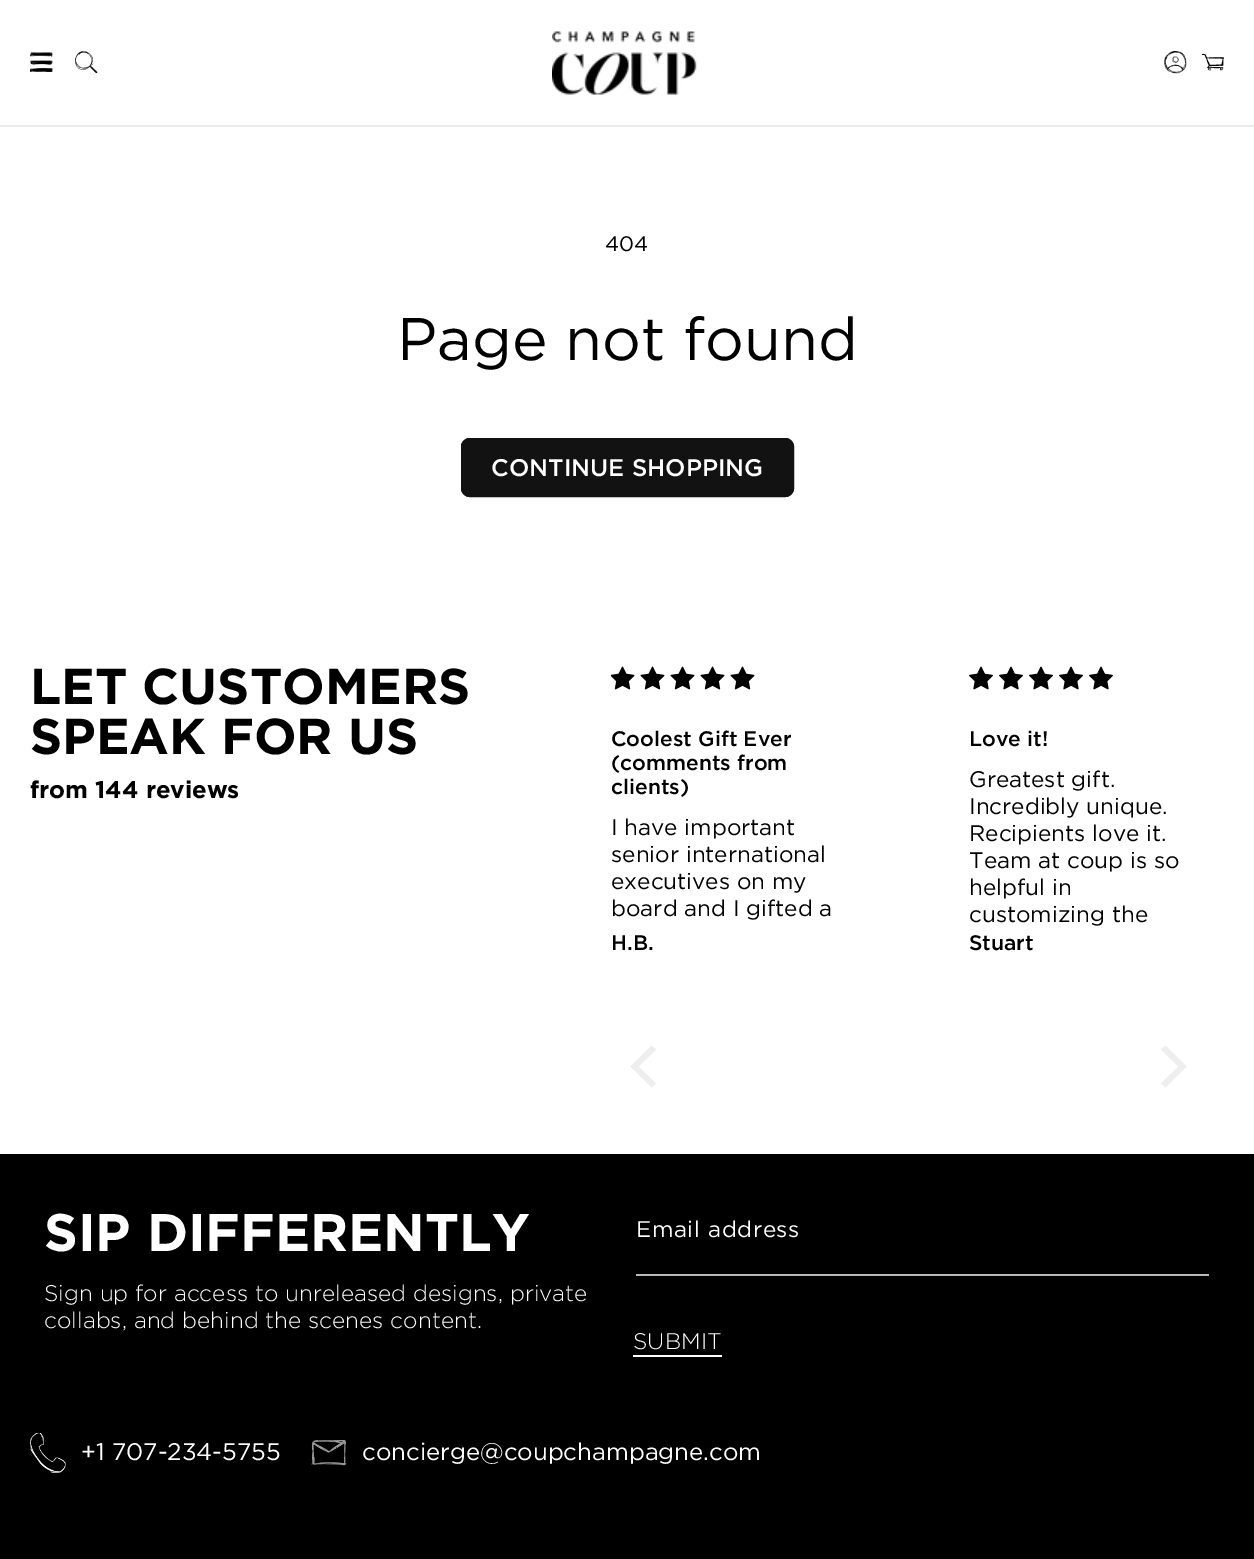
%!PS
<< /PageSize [1254 1559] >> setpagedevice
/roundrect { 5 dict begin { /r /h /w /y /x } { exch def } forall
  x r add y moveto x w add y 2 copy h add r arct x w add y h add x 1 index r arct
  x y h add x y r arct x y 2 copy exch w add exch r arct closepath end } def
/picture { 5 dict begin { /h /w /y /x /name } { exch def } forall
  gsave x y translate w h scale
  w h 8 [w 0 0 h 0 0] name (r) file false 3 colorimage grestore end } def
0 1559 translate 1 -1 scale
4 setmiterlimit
1 setgray
0 0 1254 1559 rectfill
0.922 setgray
0 125 1254 2 rectfill
(img1.rgb) 30 52 23 20 picture
(img2.rgb) 75 51 23 23 picture
(img3.rgb) 552 31 145 64 picture
(img4.rgb) 1164 51 23 23 picture
(img5.rgb) 1202 54 22 17 picture
/Gotham-Regular [21 0 0 -21 0 0] selectfont
0 setgray
605 251 moveto (404) show
/Gotham-Regular [60 0 0 -60 0 0] selectfont
397 360 moveto (Page not found) show
0.071 setgray
461 438 333 59 9 roundrect fill
2 setlinewidth
462 439 331 57 8 roundrect stroke
/Gotham-Medium [24 0 0 -24 0 0] selectfont
1 setgray
491 476 moveto (CONTINUE SHOPPING) show
/Gotham-Bold [50.25 0 0 -50.25 0 0] selectfont
0 setgray
30 704 moveto (LET CUSTOMERS) show
30 754 moveto (SPEAK FOR US) show
/Gotham-Bold [24 0 0 -24 0 0] selectfont
30 798 moveto (from 144 reviews) show
(img6.rgb) 611 666 24 24 picture
(img7.rgb) 640 666 25 24 picture
(img7.rgb) 670 666 25 24 picture
(img7.rgb) 700 666 25 24 picture
(img7.rgb) 730 666 25 24 picture
/Gotham-Medium [21 0 0 -21 0 0] selectfont
611 746 moveto (Coolest Gift Ever) show
611 770 moveto (\(comments from) show
611 794 moveto (clients\)) show
/Gotham-Regular [22.5 0 0 -22.5 0 0] selectfont
611 835 moveto (I have important) show
611 862 moveto (senior international) show
611 889 moveto (executives on my) show
611 916 moveto (board and I gifted a) show
/Gotham-Medium [21 0 0 -21 0 0] selectfont
611 950 moveto (H.B.) show
(img8.rgb) 969 666 24 24 picture
(img8.rgb) 999 666 24 24 picture
(img8.rgb) 1029 666 24 24 picture
(img8.rgb) 1059 666 24 24 picture
(img8.rgb) 1089 666 24 24 picture
969 746 moveto (Love it!) show
/Gotham-Regular [22.5 0 0 -22.5 0 0] selectfont
969 787 moveto (Greatest gift.) show
969 814 moveto (Incredibly unique.) show
969 841 moveto (Recipients love it.) show
969 868 moveto (Team at coup is so) show
969 895 moveto (helpful in) show
969 922 moveto (customizing the) show
/Gotham-Medium [21 0 0 -21 0 0] selectfont
969 950 moveto (Stuart) show
0.933 setgray
newpath 630.5 1066.5 moveto 651.5 1045.5 lineto 656 1049.5 lineto 634.5 1070.5 lineto closepath fill
newpath 630.5 1066.5 moveto 634.5 1062.5 lineto 656 1083.5 lineto 651.5 1087.5 lineto closepath fill
newpath 1161 1049.5 moveto 1165.5 1045.5 lineto 1186.5 1066.5 lineto 1182.5 1070.5 lineto closepath fill
newpath 1161 1083.5 moveto 1182.5 1062.5 lineto 1186.5 1066.5 lineto 1165.5 1087.5 lineto closepath fill
0 setgray
0 1154 1254 405 rectfill
/Gotham-Bold [52.75 0 0 -52.75 0 0] selectfont
1 setgray
44 1251 moveto (SIP DIFFERENTLY) show
/Gotham-Light [22.6 0 0 -22.6 0 0] selectfont
44 1301 moveto (Sign up for access to unreleased designs, private) show
44 1328 moveto (collabs, and behind the scenes content.) show
0.718 setgray
636 1274 573 2 rectfill
/Gotham-Regular [22.6 0 0 -22.6 0 0] selectfont
1 setgray
636 1237 moveto 0.6 0 (Email address) ashow
633 1355 89 2 rectfill
/Gotham-Light [22.6 0 0 -22.6 0 0] selectfont
633 1349 moveto (SUBMIT) show
(img9.rgb) 30 1433 36 40 picture
/Gotham-Regular [24 0 0 -24 0 0] selectfont
81 1460 moveto (+1 707-234-5755) show
(img10.rgb) 311 1440 36 26 picture
362 1460 moveto (concierge@coupchampagne.com) show
showpage
